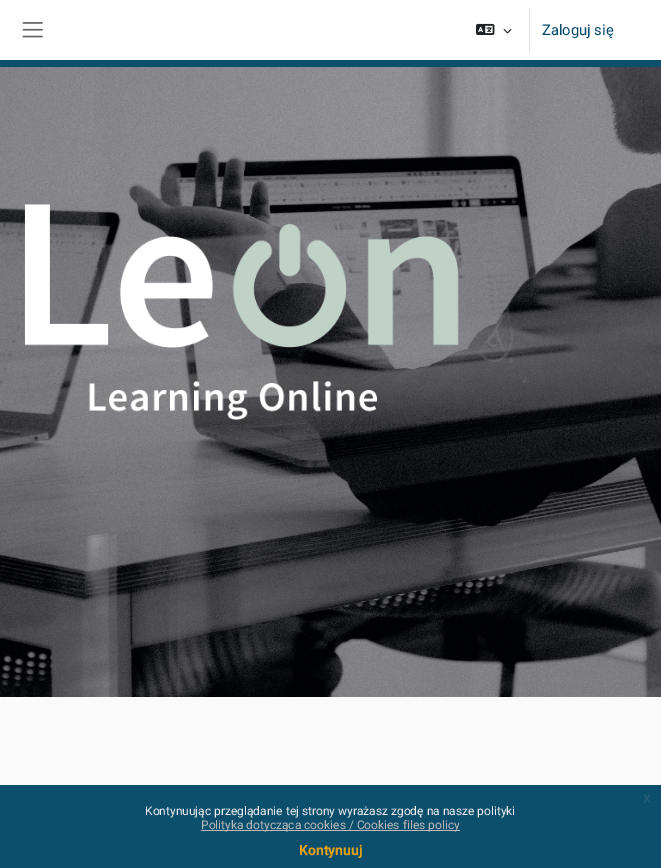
%!PS
<< /PageSize [661 868] >> setpagedevice
/picture { 5 dict begin { /h /w /y /x /name } { exch def } forall
  gsave x y translate w h scale
  w h 8 [w 0 0 h 0 0] name (r) file false 3 colorimage grestore end } def
0 868 translate 1 -1 scale
4 setmiterlimit
0.98 setgray
0 0 661 868 rectfill
1 setgray
0 0 661 60 rectfill
0.047 0.31 0.427 setrgbcolor
0 60 661 7 rectfill
(img1.rgb) 22 22 21 16 picture
(img2.rgb) 476 23 19 12 picture
(img3.rgb) 503 29 9 5 picture
0.871 0.886 0.902 setrgbcolor
529 8 1 45 rectfill
/Roboto-Regular [14.75 0 0 -14.75 0 0] selectfont
0.004 0.29 0.424 setrgbcolor
542 35 moveto (Zaloguj się) show
(img4.rgb) 0 67 661 630 picture
(img5.rgb) 24 204 435 216 picture
0.047 0.31 0.427 setrgbcolor
0 785 661 83 rectfill
/LiberationSans-Regular [16 0 0 -16 0 0] selectfont
0.165 0.376 0.471 setrgbcolor
643 803 moveto (x) show
/Roboto-Regular [12 0 0 -12 0 0] selectfont
0.937 setgray
145 815 moveto (Kontynuując przeglądanie tej strony wyrażasz zgodę na nasze polityki) show
0.733 setgray
201 830 259 1 rectfill
201 829 moveto (Polityka dotycząca cookies / Cookies files policy) show
/Roboto-Bold [14 0 0 -14 0 0] selectfont
0.906 0.635 0.09 setrgbcolor
299 855 moveto (Kontynuuj) show
showpage
